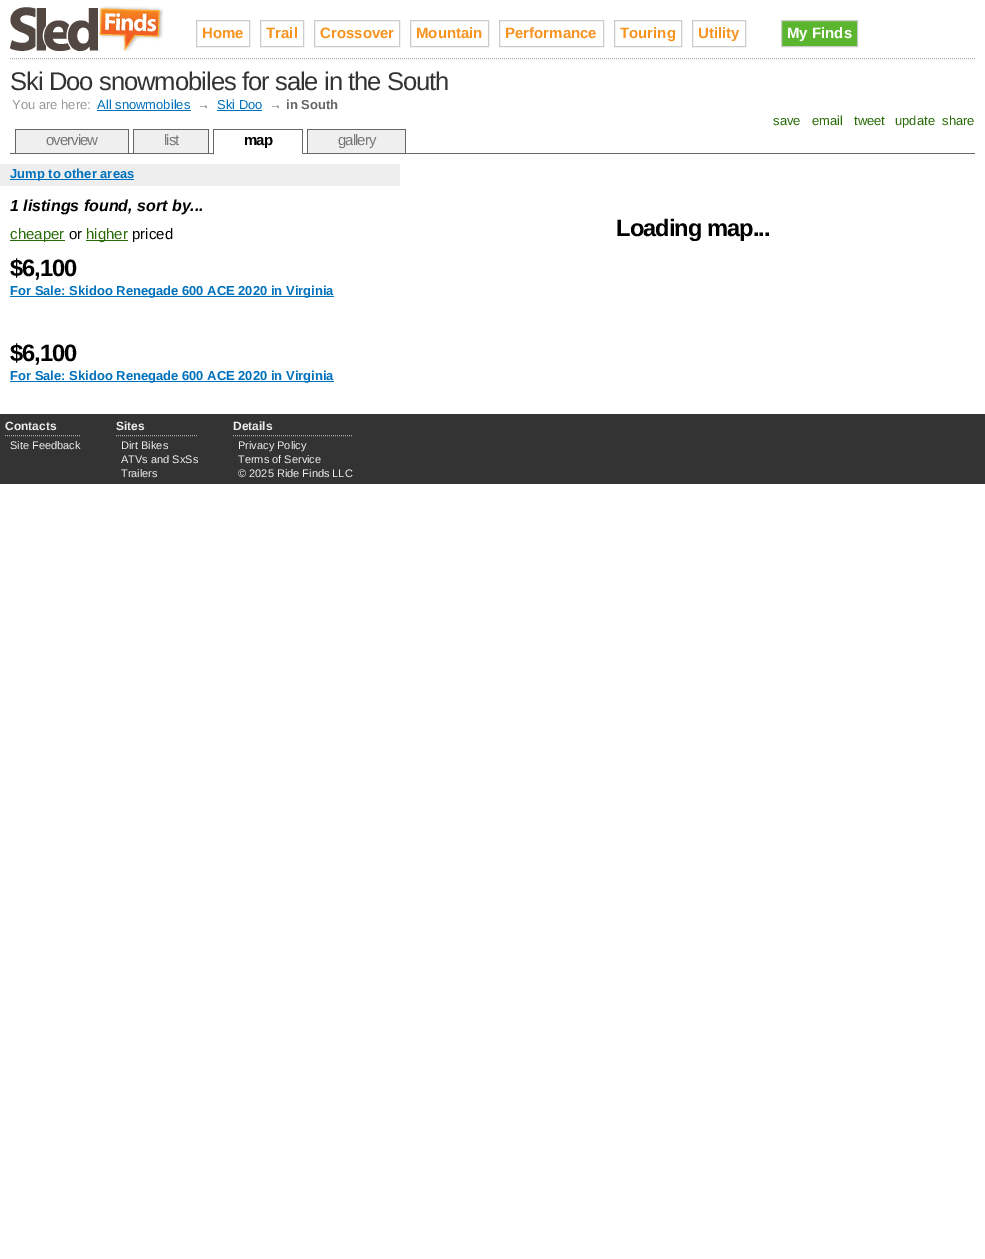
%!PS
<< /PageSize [985 1259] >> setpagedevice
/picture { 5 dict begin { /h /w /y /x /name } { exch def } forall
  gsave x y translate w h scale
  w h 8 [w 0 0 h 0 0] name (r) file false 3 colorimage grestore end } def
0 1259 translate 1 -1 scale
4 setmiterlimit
1 setgray
0 0 985 1259 rectfill
(img1.rgb) 10 6 154 45 picture
0.8 setgray
196.5 20.5 53 26 rectstroke
/LiberationSans-Bold [15 0 0 -15 0 0] selectfont
0.969 0.576 0.118 setrgbcolor
202 38 moveto (Home) show
0.8 setgray
260.5 20.5 43 26 rectstroke
0.969 0.576 0.118 setrgbcolor
266 38 moveto (Trail) show
0.8 setgray
314.5 20.5 85 26 rectstroke
0.969 0.576 0.118 setrgbcolor
320 38 moveto (Crossover) show
0.8 setgray
410.5 20.5 78 26 rectstroke
0.969 0.576 0.118 setrgbcolor
416 38 moveto (Mountain) show
0.8 setgray
499.5 20.5 104 26 rectstroke
0.969 0.576 0.118 setrgbcolor
505 38 moveto (Performance) show
0.8 setgray
614.5 20.5 67 26 rectstroke
0.969 0.576 0.118 setrgbcolor
620 38 moveto (Touring) show
0.8 setgray
692.5 20.5 53 26 rectstroke
0.969 0.576 0.118 setrgbcolor
698 38 moveto (Utility) show
0.361 0.71 0.184 setrgbcolor
newpath 781.5 20.5 moveto 857.5 20.5 lineto 857.5 46.5 lineto 781.5 46.5 lineto closepath gsave fill grestore
0.8 setgray
stroke
1 setgray
787 38 moveto (My Finds) show
0.667 setgray
[1 1] 0 setdash
newpath 10 58.5 moveto 975 58.5 lineto stroke
/LiberationSans-Regular [25.6 0 0 -25.6 0 0] selectfont
0.2 setgray
10 90 moveto -1 0 (Ski Doo snowmobiles for sale in the South) ashow
/LiberationSans-Regular [13 0 0 -13 0 0] selectfont
0.6 setgray
12 109 moveto (You are here:) show
0 0.443 0.737 setrgbcolor
97 109 moveto (All snowmobiles) show
97 110 94 1 rectfill
0.4 setgray
197 109 moveto (→) show
0 0.443 0.737 setrgbcolor
217 109 moveto (Ski Doo) show
217 110 45 1 rectfill
0.4 setgray
269 109 moveto (→) show
/LiberationSans-Bold [13 0 0 -13 0 0] selectfont
286 109 moveto (in South) show
/LiberationSans-Regular [13 0 0 -13 0 0] selectfont
0.157 0.42 0.027 setrgbcolor
773 125 moveto (save) show
812 125 moveto (email) show
854 125 moveto (tweet) show
895 125 moveto (update) show
942 125 moveto (share) show
0.4 setgray
10 153 965 1 rectfill
0.937 setgray
16 130 112 23 rectfill
0.4 setgray
15 129 114 1 rectfill
128 129 1 24 rectfill
15 129 1 24 rectfill
/LiberationSans-Regular [15 0 0 -15 0 0] selectfont
0.467 setgray
46 145 moveto -1 0 (overview) ashow
0.937 setgray
134 130 74 23 rectfill
0.4 setgray
133 129 76 1 rectfill
208 129 1 24 rectfill
133 129 1 24 rectfill
0.467 setgray
164 145 moveto -1 0 (list) ashow
0.4 setgray
213 129 90 1 rectfill
newpath 303 129 moveto 303 155 lineto 302 153 lineto 302 130 lineto closepath fill
1 setgray
newpath 303 155 moveto 213 155 lineto 214 153 lineto 302 153 lineto closepath fill
0.4 setgray
newpath 213 155 moveto 213 129 lineto 214 130 lineto 214 153 lineto closepath fill
/LiberationSans-Bold [15 0 0 -15 0 0] selectfont
0 setgray
244 145 moveto -1 0 (map) ashow
0.937 setgray
308 130 97 23 rectfill
0.4 setgray
307 129 99 1 rectfill
405 129 1 24 rectfill
307 129 1 24 rectfill
/LiberationSans-Regular [15 0 0 -15 0 0] selectfont
0.467 setgray
338 145 moveto -1 0 (gallery) ashow
0.933 setgray
0 164 400 22 rectfill
0 0.443 0.737 setrgbcolor
10 179 124 1 rectfill
/LiberationSans-Bold [13 0 0 -13 0 0] selectfont
10 178 moveto (Jump to other areas) show
/LiberationSans-BoldItalic [16 0 0 -16 0 0] selectfont
0 setgray
10 211 moveto (1 listings found, sort by...) show
0.157 0.42 0.027 setrgbcolor
10 240 55 1 rectfill
/LiberationSans-Regular [15 0 0 -15 0 0] selectfont
10 239 moveto (cheaper) show
0 setgray
69 239 moveto (or) show
0.157 0.42 0.027 setrgbcolor
86 240 42 1 rectfill
86 239 moveto (higher) show
0 setgray
132 239 moveto (priced) show
/LiberationSans-Bold [23.75 0 0 -23.75 0 0] selectfont
10 276 moveto -1 0 ($6,100) ashow
0 0.443 0.737 setrgbcolor
10 296 324 1 rectfill
/LiberationSans-Bold [13 0 0 -13 0 0] selectfont
10 295 moveto (For Sale: Skidoo Renegade 600 ACE 2020 in Virginia) show
/LiberationSans-Bold [23.75 0 0 -23.75 0 0] selectfont
0 setgray
10 361 moveto -1 0 ($6,100) ashow
0 0.443 0.737 setrgbcolor
10 381 324 1 rectfill
/LiberationSans-Bold [13 0 0 -13 0 0] selectfont
10 380 moveto (For Sale: Skidoo Renegade 600 ACE 2020 in Virginia) show
/LiberationSans-Bold [23.75 0 0 -23.75 0 0] selectfont
0 setgray
616 236 moveto -1 0 (Loading map...) ashow
0.2 setgray
0 414 985 70 rectfill
0.667 setgray
newpath 5 435.5 moveto 81 435.5 lineto stroke
/LiberationSans-Bold [12 0 0 -12 0 0] selectfont
0.933 setgray
5 430 moveto (Contacts) show
/LiberationSans-Regular [11 0 0 -11 0 0] selectfont
10 449 moveto (Site Feedback) show
0.667 setgray
newpath 116 435.5 moveto 198 435.5 lineto stroke
/LiberationSans-Bold [12 0 0 -12 0 0] selectfont
0.933 setgray
116 430 moveto (Sites) show
/LiberationSans-Regular [11 0 0 -11 0 0] selectfont
121 449 moveto (Dirt Bikes) show
121 463 moveto (ATVs and SxSs) show
121 477 moveto (Trailers) show
0.667 setgray
newpath 233 435.5 moveto 353 435.5 lineto stroke
/LiberationSans-Bold [12 0 0 -12 0 0] selectfont
0.933 setgray
233 430 moveto (Details) show
/LiberationSans-Regular [11 0 0 -11 0 0] selectfont
238 449 moveto (Privacy Policy) show
238 463 moveto (Terms of Service) show
238 477 moveto (© 2025 Ride Finds LLC) show
showpage
